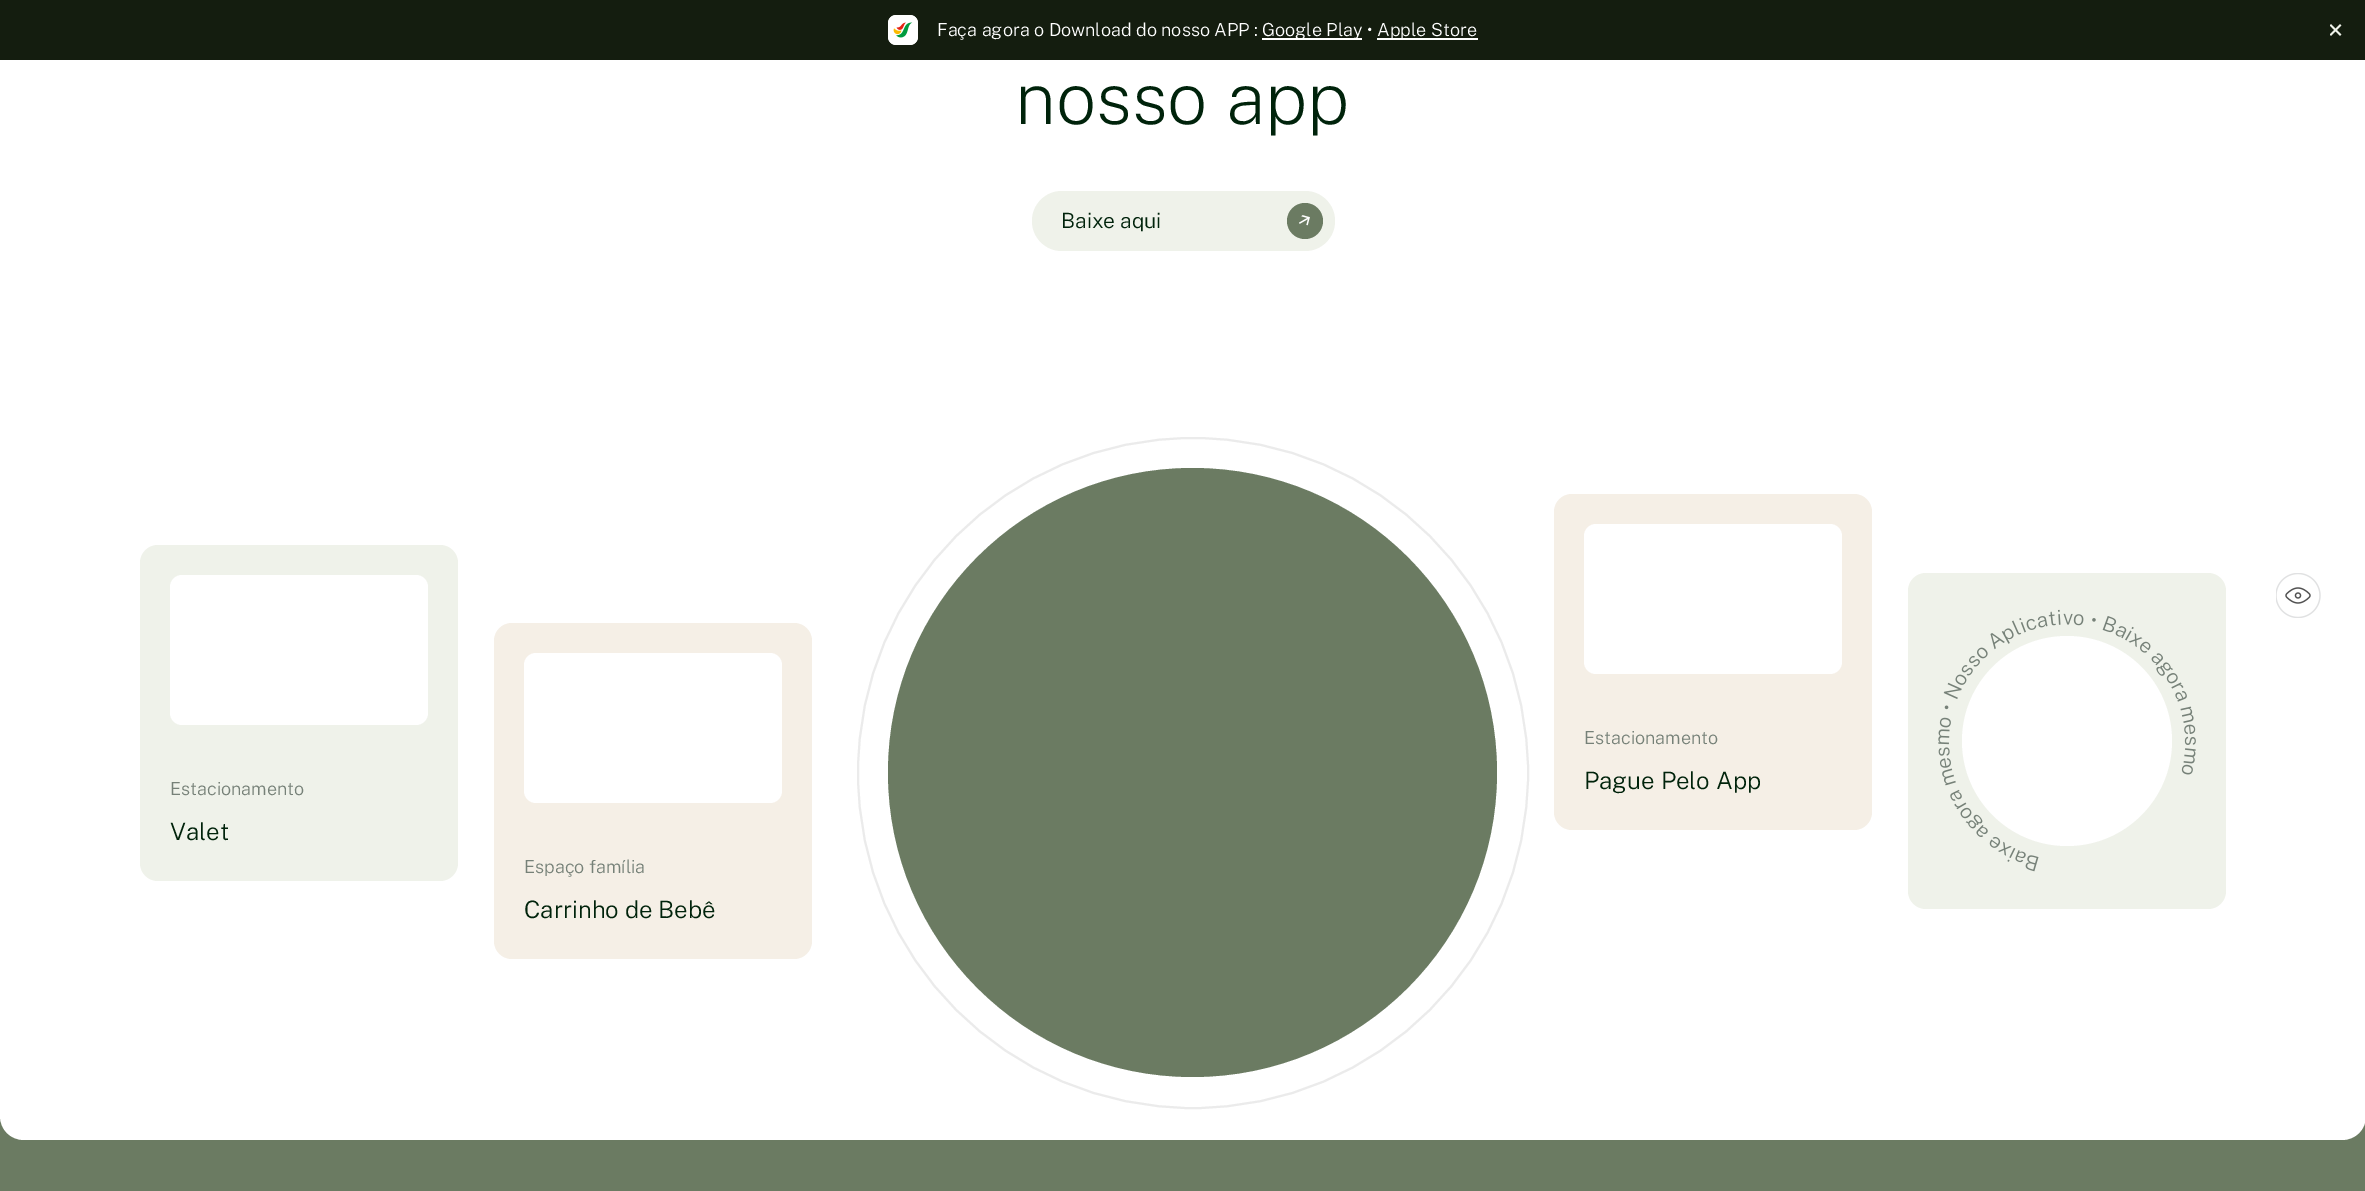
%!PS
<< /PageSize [2365 1191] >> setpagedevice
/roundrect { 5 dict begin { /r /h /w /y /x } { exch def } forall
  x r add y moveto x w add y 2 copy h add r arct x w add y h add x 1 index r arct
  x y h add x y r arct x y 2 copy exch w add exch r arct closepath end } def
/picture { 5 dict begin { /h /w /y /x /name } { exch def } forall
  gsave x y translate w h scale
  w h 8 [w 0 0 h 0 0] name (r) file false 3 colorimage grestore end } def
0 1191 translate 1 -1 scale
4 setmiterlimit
0.42 0.482 0.384 setrgbcolor
0 0 2365 1191 rectfill
1 setgray
newpath 0 -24 moveto 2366 -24 lineto 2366 1116 lineto 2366 1129.5 2355.5 1140 2342 1140 curveto 24 1140 lineto 10.5 1140 0 1129.5 0 1116 curveto closepath fill
0.078 0.114 0.059 setrgbcolor
0 0 2365 60 rectfill
(img1.rgb) 888 15 30 30 picture
(img2.rgb) 888 15 30 30 picture
/PublicSans-Light [18 0 0 -18 0 0] selectfont
1 setgray
937 36 moveto (Faça agora o Download do nosso APP :) show
1262 38 100 2 rectfill
1262 36 moveto (Google Play •) show
1377 38 101 2 rectfill
1377 36 moveto (Apple Store) show
(img3.rgb) 2330 24 12 12 picture
/PublicSans-ExtraLight [72 0 0 -72 0 0] selectfont
0 0.137 0.043 setrgbcolor
1015 124 moveto (nosso app) show
0.937 0.949 0.918 setrgbcolor
1032 191 303 60 30 roundrect fill
/PublicSans-Light [21 0 0 -21 0 0] selectfont
0 0.137 0.043 setrgbcolor
1061 228 moveto (Baixe aqui) show
0.42 0.482 0.384 setrgbcolor
newpath 1305 221 18 0 360 arc closepath fill
(img4.rgb) 1299 215 11 11 picture
0.922 setgray
2 setlinewidth
newpath 1193 773 335 0 360 arc closepath stroke
0.42 0.482 0.384 setrgbcolor
newpath 1192.5 772.5 304.5 0 360 arc closepath fill
0.961 0.937 0.902 setrgbcolor
1554 494 318 336 18 roundrect fill
1 setgray
1584 524 258 150 12 roundrect fill
/PublicSans-Light [18 0 0 -18 0 0] selectfont
0.463 0.506 0.471 setrgbcolor
1584 744 moveto (Estacionamento) show
/PublicSans-Light [24 0 0 -24 0 0] selectfont
0 0.137 0.043 setrgbcolor
1584 789 moveto (Pague Pelo App) show
0.937 0.949 0.918 setrgbcolor
1908 573 318 336 18 roundrect fill
(img5.rgb) 1938 609 258 263 picture
1 setgray
newpath 2067 741 105 0 360 arc closepath fill
0.937 0.949 0.918 setrgbcolor
140 545 318 336 18 roundrect fill
1 setgray
170 575 258 150 12 roundrect fill
/PublicSans-Light [18 0 0 -18 0 0] selectfont
0.463 0.506 0.471 setrgbcolor
170 795 moveto (Estacionamento) show
/PublicSans-Light [24 0 0 -24 0 0] selectfont
0 0.137 0.043 setrgbcolor
170 840 moveto (Valet) show
0.961 0.937 0.902 setrgbcolor
494 623 318 336 18 roundrect fill
1 setgray
524 653 258 150 12 roundrect fill
/PublicSans-Light [18 0 0 -18 0 0] selectfont
0.463 0.506 0.471 setrgbcolor
524 873 moveto (Espaço família) show
/PublicSans-Light [24 0 0 -24 0 0] selectfont
0 0.137 0.043 setrgbcolor
524 918 moveto (Carrinho de Bebê) show
(img6.rgb) 2276 573 45 45 picture
showpage
